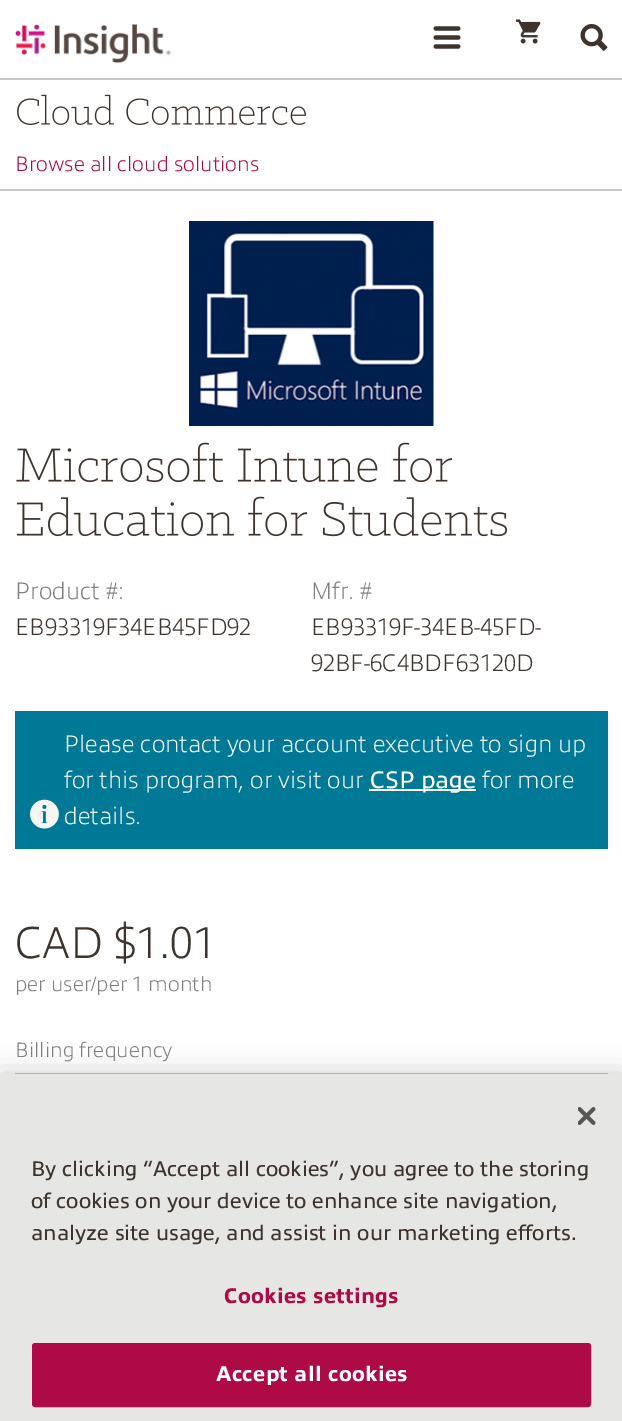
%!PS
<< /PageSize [622 1421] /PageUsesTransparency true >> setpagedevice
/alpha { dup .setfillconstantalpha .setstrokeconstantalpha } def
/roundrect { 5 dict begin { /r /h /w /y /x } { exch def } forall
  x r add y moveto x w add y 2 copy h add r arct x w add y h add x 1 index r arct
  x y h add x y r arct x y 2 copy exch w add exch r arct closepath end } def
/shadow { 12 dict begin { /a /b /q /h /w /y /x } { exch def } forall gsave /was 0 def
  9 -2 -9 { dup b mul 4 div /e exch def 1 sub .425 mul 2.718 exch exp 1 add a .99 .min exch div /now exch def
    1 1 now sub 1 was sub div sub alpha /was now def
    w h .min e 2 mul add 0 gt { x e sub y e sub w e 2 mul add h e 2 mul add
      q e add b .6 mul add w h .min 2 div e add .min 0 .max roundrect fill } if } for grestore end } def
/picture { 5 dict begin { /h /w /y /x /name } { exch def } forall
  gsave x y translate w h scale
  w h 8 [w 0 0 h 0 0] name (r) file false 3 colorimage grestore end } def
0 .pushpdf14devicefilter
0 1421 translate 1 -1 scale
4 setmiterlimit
1 setgray
0 0 622 1421 rectfill
0.796 0.769 0.765 setrgbcolor
0 189 622 2 rectfill
0 78 622 2 rectfill
(img1.rgb) 15 24 156 39 picture
(img2.rgb) 433 26 28 23 picture
(img3.rgb) 516 19 25 25 picture
(img4.rgb) 580 24 28 27 picture
(img5.rgb) 17 94 289 31 picture
/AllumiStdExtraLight-ExtraLight [21 0 0 -21 0 0] selectfont
0.682 0.039 0.275 setrgbcolor
15 171 moveto (Browse all cloud solutions) show
(img6.rgb) 189 221 245 205 picture
(img7.rgb) 16 442 437 41 picture
(img8.rgb) 16 496 491 41 picture
/AllumiStdExtraLight-ExtraLight [24 0 0 -24 0 0] selectfont
0.502 setgray
15 599 moveto (Product #:) show
0.243 0.2 0.176 setrgbcolor
15 635 moveto (EB93319F34EB45FD92) show
0.502 setgray
311 599 moveto (Mfr. #) show
0.243 0.2 0.176 setrgbcolor
311 635 moveto (EB93319F-34EB-45FD-) show
311 671 moveto (92BF-6C4BDF63120D) show
0 0.475 0.588 setrgbcolor
15 711 593 138 rectfill
(img9.rgb) 30 799 29 30 picture
0.969 0.965 0.961 setrgbcolor
64 752 moveto (Please contact your account executive to sign up) show
64 788 moveto (for this program, or visit our) show
1 setgray
369 789 107 2 rectfill
/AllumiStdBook-Regular [24 0 0 -24 0 0] selectfont
370 788 moveto (CSP page) show
/AllumiStdExtraLight-ExtraLight [24 0 0 -24 0 0] selectfont
0.969 0.965 0.961 setrgbcolor
482 788 moveto (for more) show
64 824 moveto (details.) show
/AllumiStdExtraLight-ExtraLight [45 0 0 -45 0 0] selectfont
0.243 0.2 0.176 setrgbcolor
15 958 moveto (CAD $1.01) show
/AllumiStdExtraLight-ExtraLight [21 0 0 -21 0 0] selectfont
0.502 setgray
15 991 moveto (per user/per 1 month) show
15 1057 moveto (Billing frequency) show
0.796 0.769 0.765 setrgbcolor
2 setlinewidth
16 1074 591 62 rectstroke
0 setgray
0 1074 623 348 0 13.5 0.2 shadow
0.902 0.902 0.898 setrgbcolor
0 1074 622 347 rectfill
(img10.rgb) 578 1107 18 18 picture
/AllumiStdBook-Regular [21.35 0 0 -21.35 0 0] selectfont
0.243 0.2 0.176 setrgbcolor
31 1176 moveto (By clicking “Accept all cookies”, you agree to the storing) show
31 1208 moveto (of cookies on your device to enhance site navigation,) show
31 1240 moveto (analyze site usage, and assist in our marketing efforts.) show
/AllumiStdBook-ExtraBold [21.35 0 0 -21.35 0 0] selectfont
0.682 0.039 0.275 setrgbcolor
224 1303 moveto 0.25 0 (Cookies settings) ashow
33 1344 557 62 2 roundrect gsave fill grestore
stroke
1 setgray
216 1381 moveto 0.25 0 (Accept all cookies) ashow
.poppdf14devicefilter showpage
